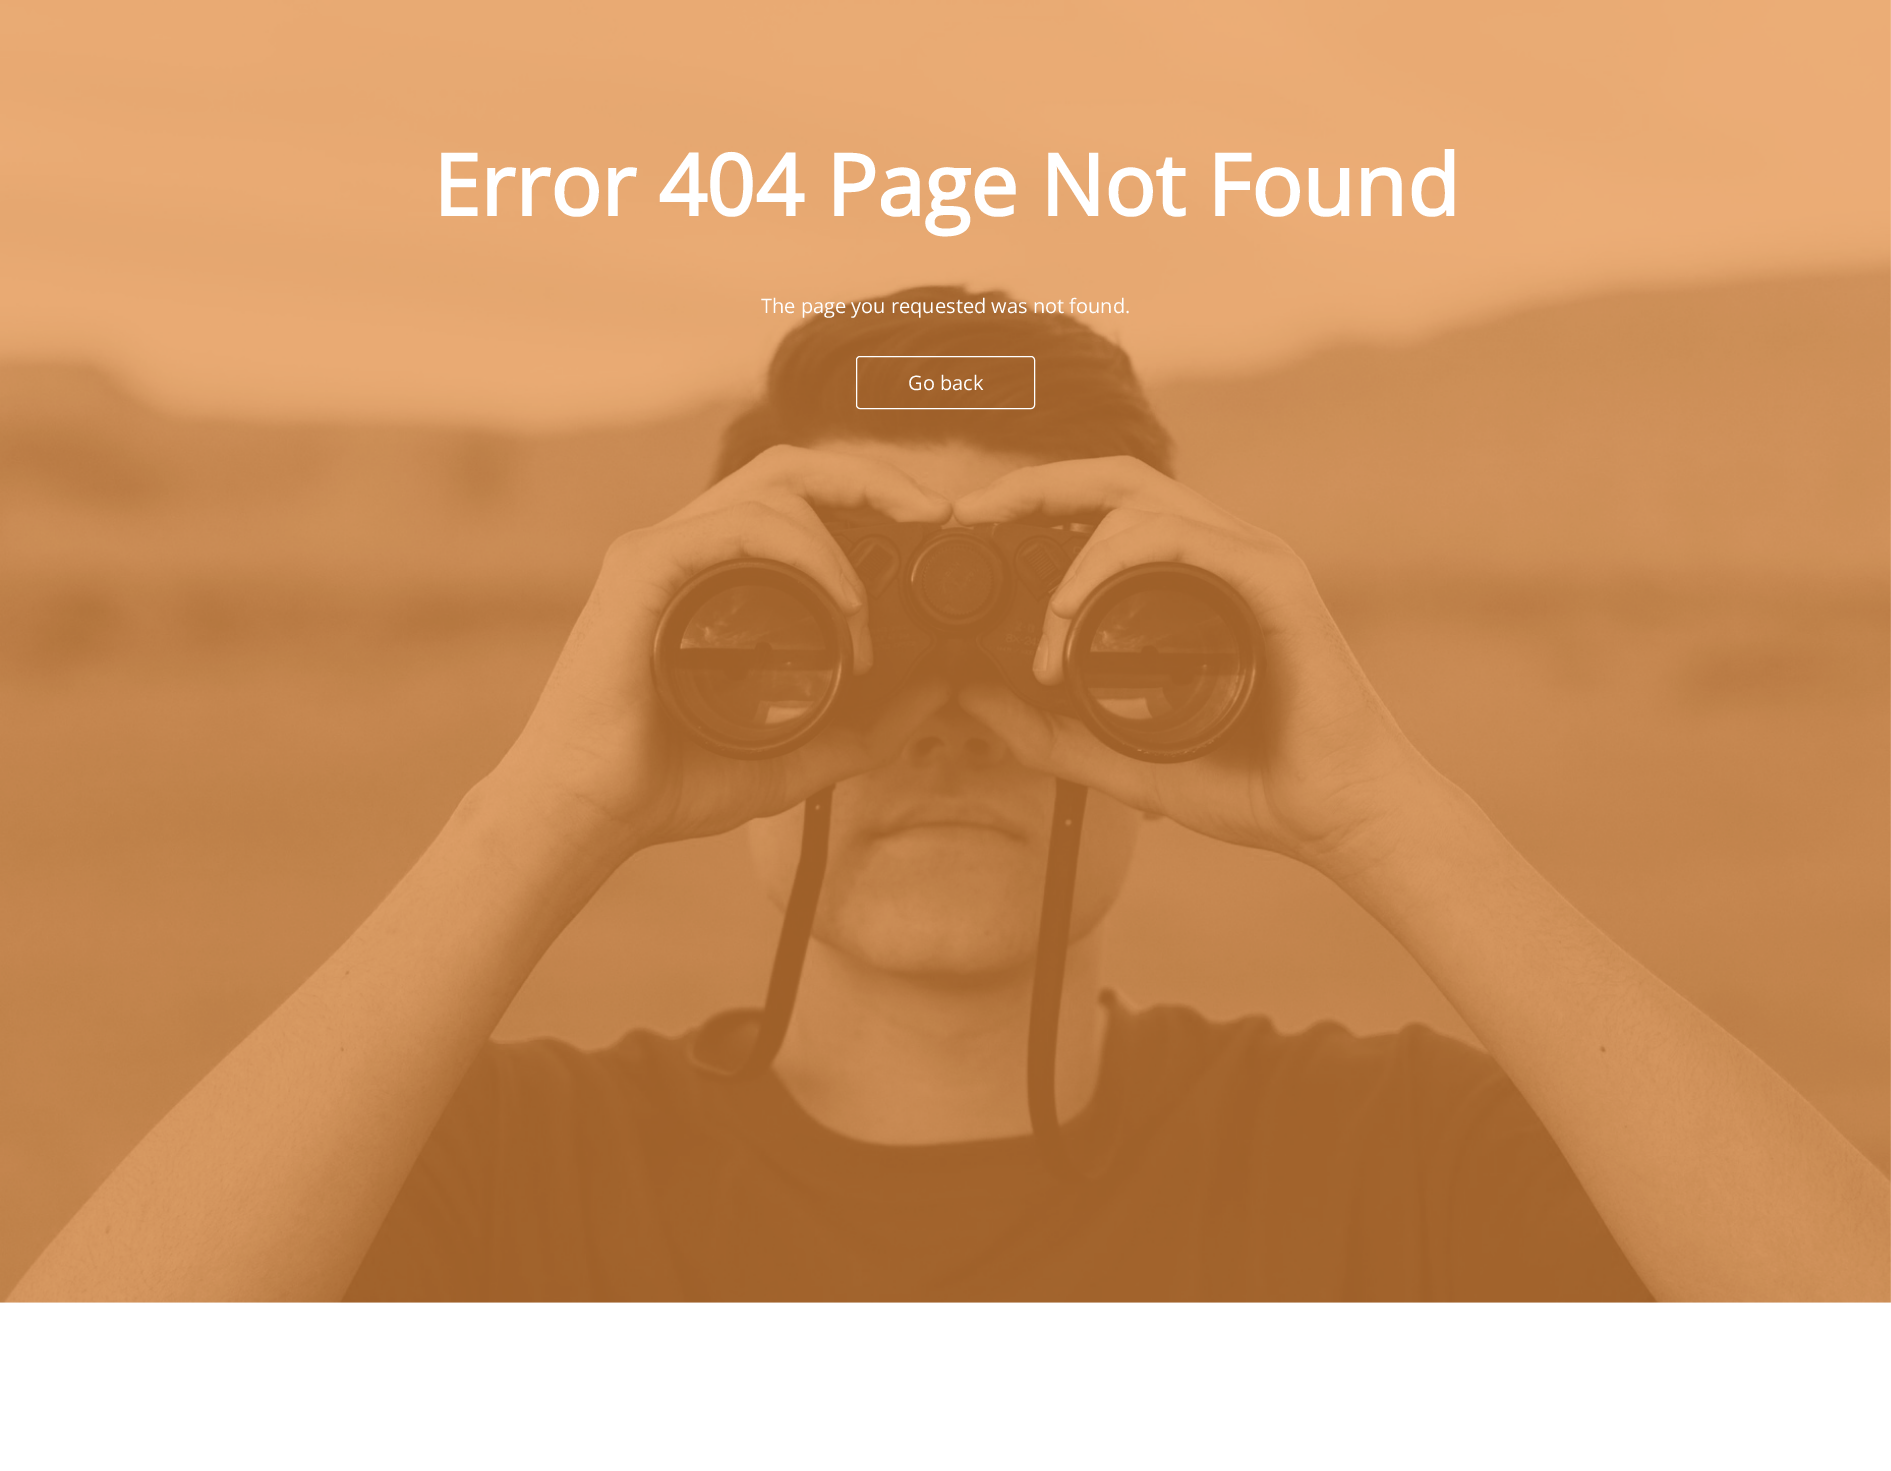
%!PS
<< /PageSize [1891 1471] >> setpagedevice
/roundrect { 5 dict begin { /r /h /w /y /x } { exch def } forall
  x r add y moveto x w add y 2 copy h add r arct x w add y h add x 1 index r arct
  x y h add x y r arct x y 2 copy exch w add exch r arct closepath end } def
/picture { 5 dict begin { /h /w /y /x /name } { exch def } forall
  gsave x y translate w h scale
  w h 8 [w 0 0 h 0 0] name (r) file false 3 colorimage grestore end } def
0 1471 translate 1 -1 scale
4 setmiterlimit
1 setgray
0 0 1891 1471 rectfill
(img1.rgb) 0 0 1891 1303 picture
/OpenSans-Bold [85 0 0 -85 0 0] selectfont
433 216 moveto (Error 404 Page Not Found) show
/OpenSans-Regular [20 0 0 -20 0 0] selectfont
761 313 moveto (The page you requested was not found.) show
856.5 356.5 178 52 3.5 roundrect stroke
908 390 moveto (Go back) show
showpage
